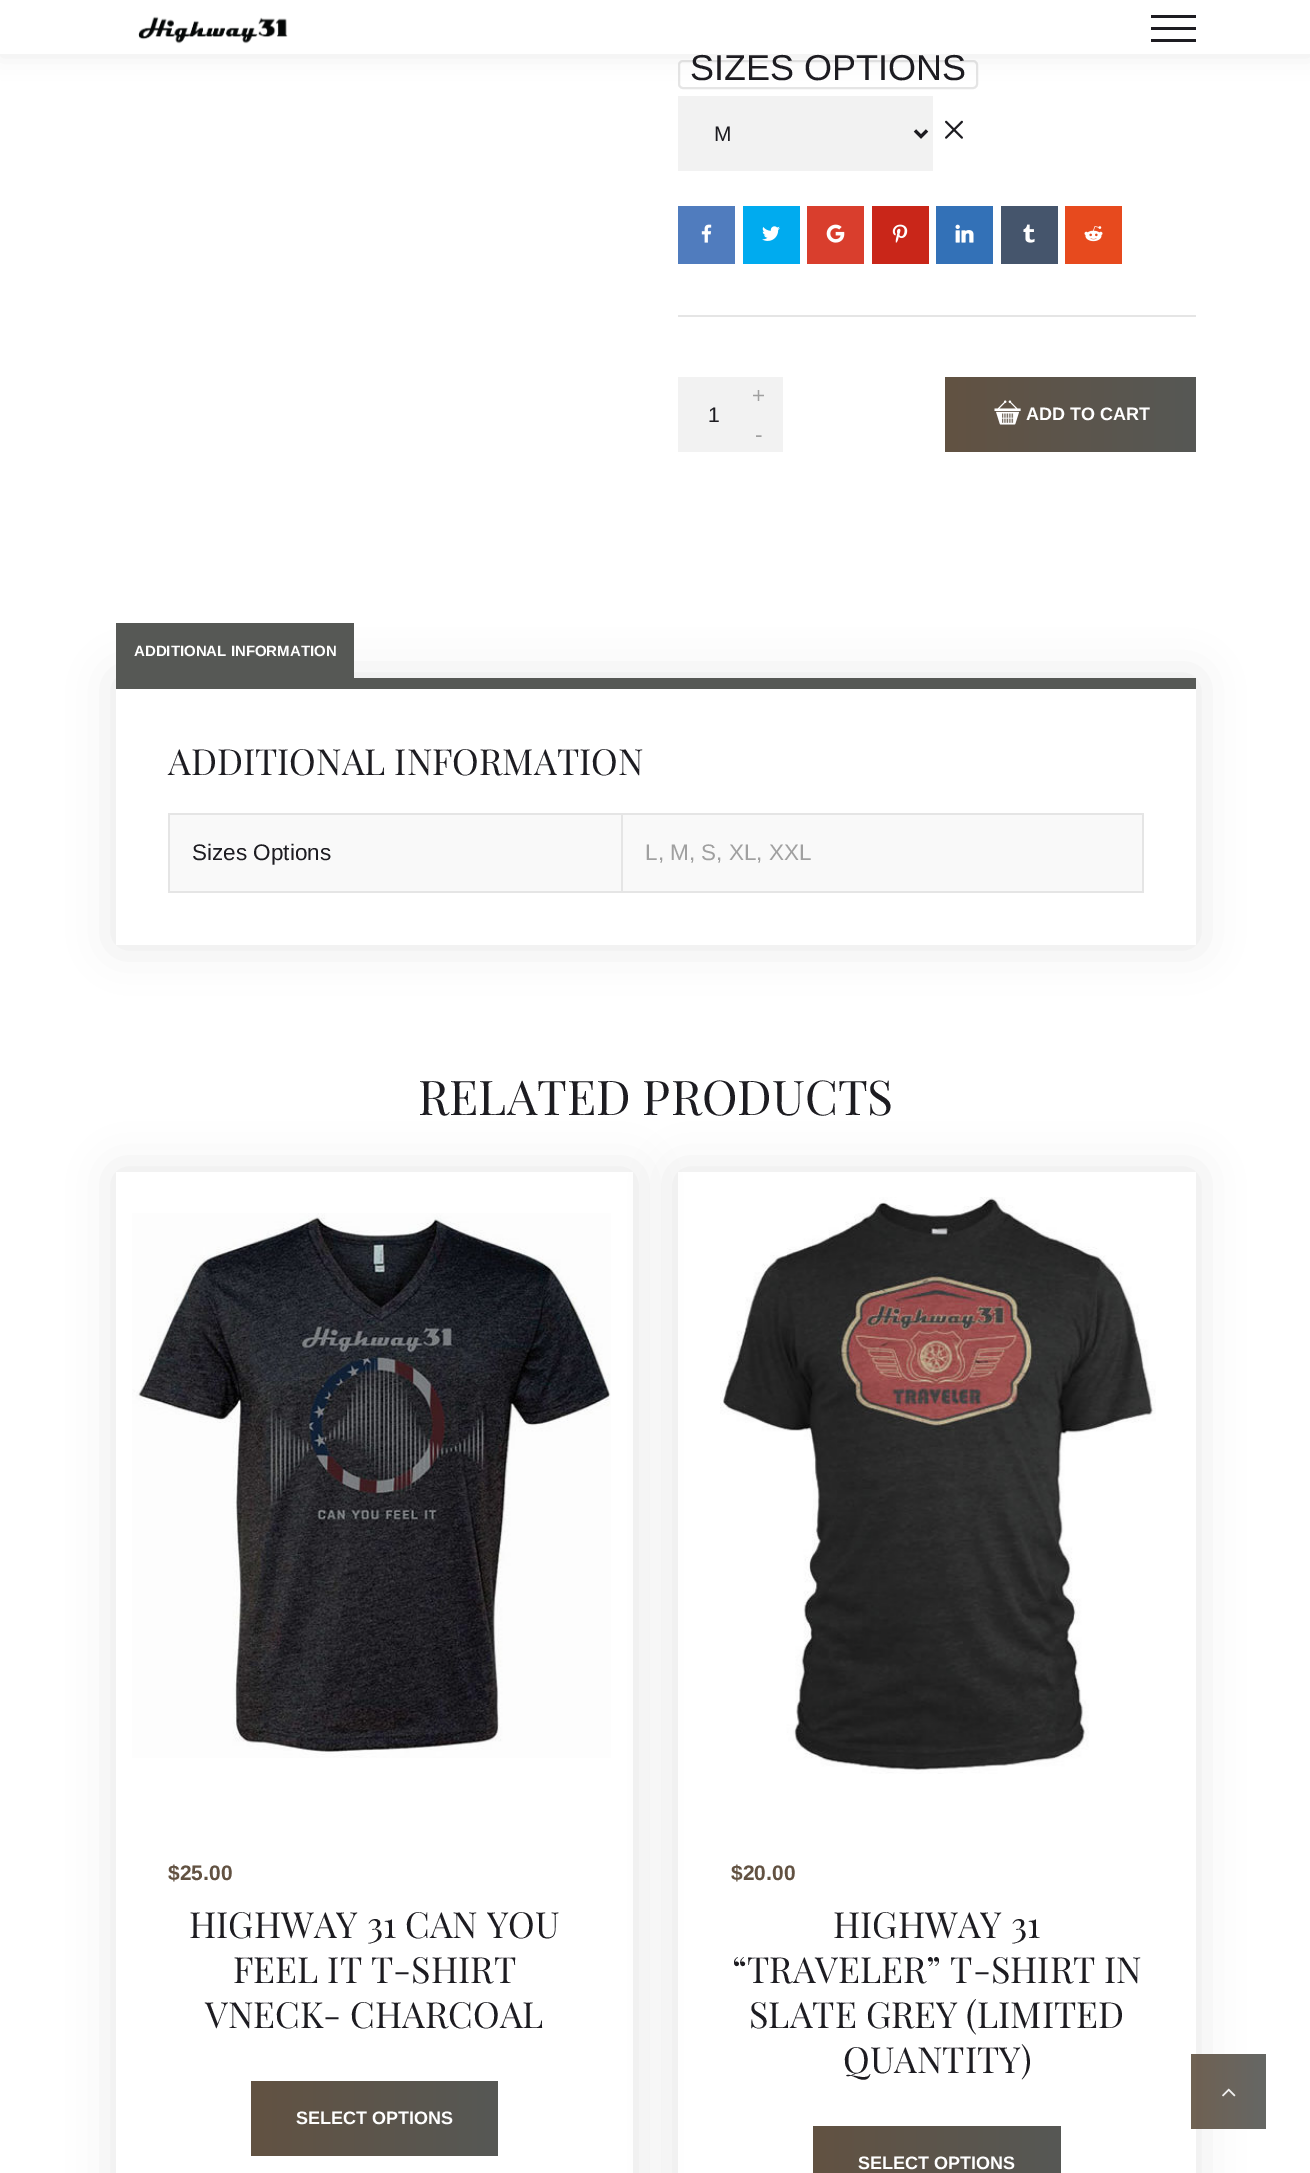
%!PS
<< /PageSize [1310 2173] /PageUsesTransparency true >> setpagedevice
/alpha { dup .setfillconstantalpha .setstrokeconstantalpha } def
/roundrect { 5 dict begin { /r /h /w /y /x } { exch def } forall
  x r add y moveto x w add y 2 copy h add r arct x w add y h add x 1 index r arct
  x y h add x y r arct x y 2 copy exch w add exch r arct closepath end } def
/shadow { 12 dict begin { /a /b /q /h /w /y /x } { exch def } forall gsave /was 0 def
  9 -2 -9 { dup b mul 4 div /e exch def 1 sub .425 mul 2.718 exch exp 1 add a .99 .min exch div /now exch def
    1 1 now sub 1 was sub div sub alpha /was now def
    w h .min e 2 mul add 0 gt { x e sub y e sub w e 2 mul add h e 2 mul add
      q e add b .6 mul add w h .min 2 div e add .min 0 .max roundrect fill } if } for grestore end } def
/picture { 5 dict begin { /h /w /y /x /name } { exch def } forall
  gsave x y translate w h scale
  w h 8 [w 0 0 h 0 0] name (r) file false 3 colorimage grestore end } def
0 .pushpdf14devicefilter
0 2173 translate 1 -1 scale
4 setmiterlimit
1 setgray
0 0 1310 2173 rectfill
0.898 setgray
2 setlinewidth
679 61 298 27 4 roundrect stroke
0 setgray
0 2 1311 54 0 11 0.07 shadow
1 setgray
0 0 1310 54 rectfill
(img1.rgb) 138 16 150 28 picture
0.114 0.11 0.129 setrgbcolor
1151 27 45 3 rectfill
1151 15 45 3 rectfill
1151 39 45 3 rectfill
/LiberationSans-Regular [36 0 0 -36 0 0] selectfont
690 80 moveto (SIZES OPTIONS) show
0.949 setgray
678 96 255 75 rectfill
0.114 0.11 0.129 setrgbcolor
3 setlinewidth
newpath 915 130.5 moveto 921 136.5 lineto 927 130.5 lineto stroke
/LiberationSans-Regular [21 0 0 -21 0 0] selectfont
714 141 moveto (M) show
(img2.rgb) 945 120 18 19 picture
0.898 setgray
678 315 518 2 rectfill
0.314 0.486 0.745 setrgbcolor
678 206 57 58 rectfill
(img3.rgb) 701 224 11 19 picture
0 0.671 0.937 setrgbcolor
743 206 57 58 rectfill
(img4.rgb) 762 226 18 15 picture
0.851 0.243 0.176 setrgbcolor
807 206 57 58 rectfill
(img5.rgb) 826 224 19 19 picture
0.788 0.149 0.098 setrgbcolor
872 206 57 58 rectfill
(img6.rgb) 892 224 16 19 picture
0.2 0.443 0.718 setrgbcolor
936 206 57 58 rectfill
(img7.rgb) 955 224 19 19 picture
0.271 0.333 0.424 setrgbcolor
1001 206 57 58 rectfill
(img8.rgb) 1023 224 12 19 picture
0.906 0.29 0.118 setrgbcolor
1065 206 57 58 rectfill
(img9.rgb) 1084 226 19 16 picture
0.949 setgray
678 377 105 75 rectfill
/LiberationSans-Regular [22.5 0 0 -22.5 0 0] selectfont
0.627 setgray
752 403 moveto (+) show
/LiberationSans-Regular [21 0 0 -21 0 0] selectfont
0.114 0.11 0.129 setrgbcolor
708 422 moveto (1) show
/LiberationSans-Regular [22.5 0 0 -22.5 0 0] selectfont
0.627 setgray
755 442 moveto (-) show
gsave newpath 945 377 moveto 1196 377 lineto 1196 452 lineto 945 452 lineto closepath clip newpath
<< /ShadingType 2 /ColorSpace /DeviceRGB /Coords [945 414 1196 414] /Extend [true true] /Function << /FunctionType 2 /Domain [0 1] /C0 [0.384 0.322 0.259] /C1 [0.337 0.345 0.333] /N 1 >> >> shfill grestore
(img10.rgb) 994 400 27 25 picture
/LiberationSans-Bold [18 0 0 -18 0 0] selectfont
1 setgray
1026 420 moveto (ADD TO CART) show
gsave
newpath 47 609 moveto 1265 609 lineto 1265 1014 lineto 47 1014 lineto closepath 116 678 moveto 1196 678 lineto 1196 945 lineto 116 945 lineto closepath eoclip newpath
0 setgray
116 678 1080 267 0 22.5 0.1 shadow
grestore
0.337 0.345 0.333 setrgbcolor
116 623 238 55 rectfill
/LiberationSans-Bold [15 0 0 -15 0 0] selectfont
1 setgray
134 656 moveto (ADDITIONAL INFORMATION) show
0.337 0.345 0.333 setrgbcolor
116 678 1080 11 rectfill
/PlayfairDisplay-Regular [36 0 0 -36 0 0] selectfont
0.114 0.11 0.129 setrgbcolor
168 775 moveto (ADDITIONAL INFORMATION) show
0.898 setgray
168 813 975 2 rectfill
168 891 975 2 rectfill
0.976 setgray
170 815 972 76 rectfill
0.898 setgray
168 813 2 80 rectfill
/LiberationSans-Regular [22.5 0 0 -22.5 0 0] selectfont
0.114 0.11 0.129 setrgbcolor
192 860 moveto (Sizes Options) show
0.898 setgray
1142 813 2 80 rectfill
621 813 2 80 rectfill
0.627 setgray
645 860 moveto (L, M, S, XL, XXL) show
/PlayfairDisplay-Regular [48 0 0 -48 0 0] selectfont
0.114 0.11 0.129 setrgbcolor
418 1115 moveto (RELATED PRODUCTS) show
gsave
newpath 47 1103 moveto 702 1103 lineto 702 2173 lineto 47 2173 lineto closepath 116 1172 moveto 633 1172 lineto 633 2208 lineto 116 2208 lineto closepath eoclip newpath
0 setgray
116 1172 517 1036 0 22.5 0.1 shadow
grestore
(img11.rgb) 132 1213 479 545 picture
/LiberationSans-Bold [21 0 0 -21 0 0] selectfont
0.384 0.322 0.259 setrgbcolor
168 1880 moveto ($25.00) show
/PlayfairDisplay-Regular [36 0 0 -36 0 0] selectfont
0.114 0.11 0.129 setrgbcolor
189 1938 moveto (HIGHWAY 31 CAN YOU) show
233 1983 moveto (FEEL IT T-SHIRT) show
205 2028 moveto (VNECK- CHARCOAL) show
gsave newpath 251 2081 moveto 498 2081 lineto 498 2156 lineto 251 2156 lineto closepath clip newpath
<< /ShadingType 2 /ColorSpace /DeviceRGB /Coords [251 2118 498 2118] /Extend [true true] /Function << /FunctionType 2 /Domain [0 1] /C0 [0.384 0.322 0.259] /C1 [0.337 0.345 0.333] /N 1 >> >> shfill grestore
/LiberationSans-Bold [18 0 0 -18 0 0] selectfont
1 setgray
296 2124 moveto (SELECT OPTIONS) show
gsave
newpath 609 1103 moveto 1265 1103 lineto 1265 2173 lineto 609 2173 lineto closepath 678 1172 moveto 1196 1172 lineto 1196 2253 lineto 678 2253 lineto closepath eoclip newpath
0 setgray
678 1172 518 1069 0 22.5 0.1 shadow
grestore
(img12.rgb) 720 1197 436 577 picture
/LiberationSans-Bold [21 0 0 -21 0 0] selectfont
0.384 0.322 0.259 setrgbcolor
731 1880 moveto ($20.00) show
/PlayfairDisplay-Regular [36 0 0 -36 0 0] selectfont
0.114 0.11 0.129 setrgbcolor
833 1938 moveto (HIGHWAY 31) show
732 1983 moveto (“TRAVELER” T-SHIRT IN) show
749 2028 moveto (SLATE GREY \(LIMITED) show
843 2073 moveto (QUANTITY\)) show
gsave newpath 813 2126 moveto 1061 2126 lineto 1061 2173 lineto 813 2173 lineto closepath clip newpath
<< /ShadingType 2 /ColorSpace /DeviceRGB /Coords [813 2163 1061 2163] /Extend [true true] /Function << /FunctionType 2 /Domain [0 1] /C0 [0.384 0.322 0.259] /C1 [0.337 0.345 0.333] /N 1 >> >> shfill grestore
/LiberationSans-Bold [18 0 0 -18 0 0] selectfont
1 setgray
858 2169 moveto (SELECT OPTIONS) show
0.91 alpha
gsave newpath 1191 2054 moveto 1266 2054 lineto 1266 2129 lineto 1191 2129 lineto closepath clip newpath
<< /ShadingType 2 /ColorSpace /DeviceRGB /Coords [1191 2091 1266 2091] /Extend [true true] /Function << /FunctionType 2 /Domain [0 1] /C0 [0.384 0.322 0.259] /C1 [0.337 0.345 0.333] /N 1 >> >> shfill grestore
1 alpha
(img13.rgb) 1222 2088 14 9 picture
.poppdf14devicefilter showpage
